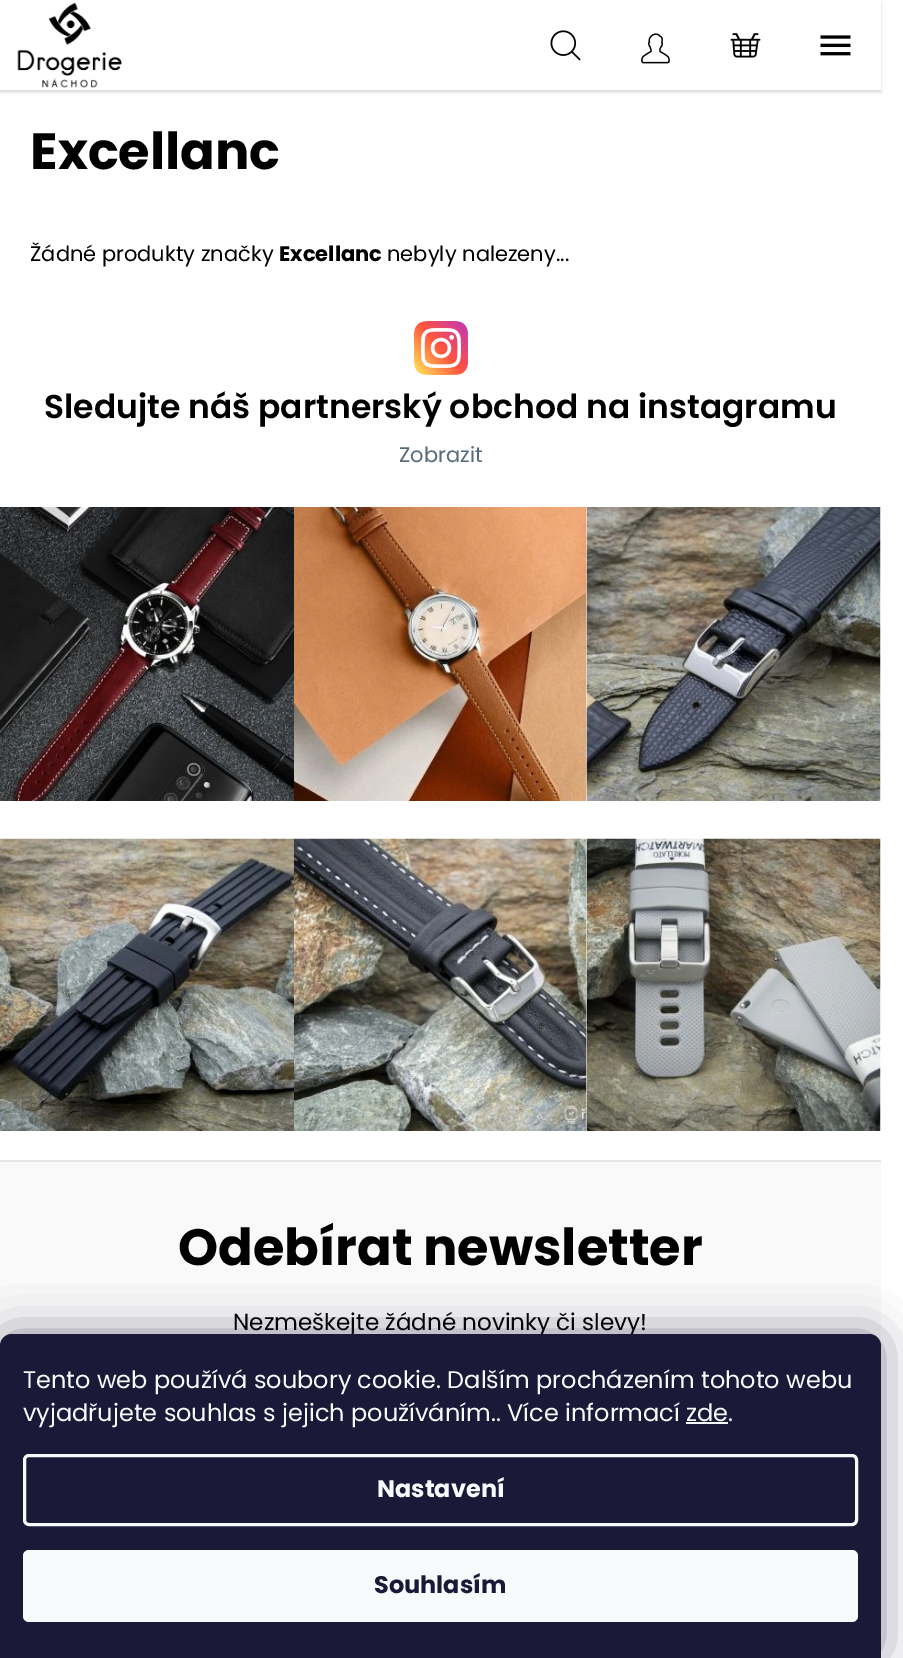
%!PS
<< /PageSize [903 1658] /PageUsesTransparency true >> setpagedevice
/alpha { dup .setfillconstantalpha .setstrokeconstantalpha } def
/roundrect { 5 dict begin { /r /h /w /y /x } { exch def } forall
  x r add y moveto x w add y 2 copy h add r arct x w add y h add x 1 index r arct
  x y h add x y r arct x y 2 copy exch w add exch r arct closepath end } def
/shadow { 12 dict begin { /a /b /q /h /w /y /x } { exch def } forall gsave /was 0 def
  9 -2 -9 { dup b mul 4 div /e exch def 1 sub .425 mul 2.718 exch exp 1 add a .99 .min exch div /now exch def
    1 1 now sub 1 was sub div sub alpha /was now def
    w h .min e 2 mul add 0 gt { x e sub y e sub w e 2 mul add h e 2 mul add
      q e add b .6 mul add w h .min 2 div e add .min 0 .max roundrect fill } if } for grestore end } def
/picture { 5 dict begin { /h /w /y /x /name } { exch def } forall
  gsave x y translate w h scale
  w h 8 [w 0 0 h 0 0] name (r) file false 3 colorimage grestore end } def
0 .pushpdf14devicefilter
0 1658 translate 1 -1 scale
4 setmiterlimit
1 setgray
0 0 903 1658 rectfill
0 setgray
0 2 881 90 0 1.5 0.16 shadow
1 setgray
0 0 881 90 rectfill
(img1.rgb) 17 2 105 86 picture
(img2.rgb) 550 30 31 31 picture
(img3.rgb) 641 33 29 31 picture
(img4.rgb) 730 33 31 25 picture
(img5.rgb) 820 35 31 21 picture
/Poppins-Bold [51 0 0 -51 0 0] selectfont
0 setgray
30 169 moveto (Excellanc) show
/Poppins-Regular [21 0 0 -21 0 0] selectfont
30 261 moveto (Žádné produkty značky) show
/Poppins-Bold [21 0 0 -21 0 0] selectfont
279 261 moveto (Excellanc) show
/Poppins-Regular [21 0 0 -21 0 0] selectfont
387 261 moveto (nebyly nalezeny...) show
(img6.rgb) 414 321 54 54 picture
/Poppins-SemiBold [33 0 0 -33 0 0] selectfont
44 418 moveto (Sledujte náš partnerský obchod na instagramu) show
/Poppins-Regular [21 0 0 -21 0 0] selectfont
0.329 0.42 0.475 setrgbcolor
399 462 moveto (Zobrazit) show
(img7.rgb) 0 507 294 294 picture
(img8.rgb) 294 507 293 294 picture
(img9.rgb) 586 507 295 294 picture
(img10.rgb) 0 838 294 293 picture
(img11.rgb) 294 838 293 293 picture
(img12.rgb) 586 838 295 293 picture
0.976 setgray
0 1162 881 184 rectfill
0.902 setgray
0 1160 881 2 rectfill
/Poppins-Bold [51 0 0 -51 0 0] selectfont
0 setgray
178 1265 moveto (Odebírat newsletter) show
/Poppins-Regular [23.1 0 0 -23.1 0 0] selectfont
233 1330 moveto (Nezmeškejte žádné novinky či slevy!) show
0.106 0.098 0.224 setrgbcolor
0 1334 881 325 12 22.5 0.5 shadow
0.102 0.098 0.216 setrgbcolor
newpath 12 1334 moveto 869 1334 lineto 875.5 1334 881 1339.5 881 1346 curveto 881 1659 lineto 0 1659 lineto 0 1346 lineto 0 1339.5 5.5 1334 12 1334 curveto closepath fill
/Poppins-Regular [24 0 0 -24 0 0] selectfont
0.973 0.98 0.984 setrgbcolor
23 1388 moveto (Tento web používá soubory cookie. Dalším procházením tohoto webu) show
23 1421 moveto (vyjadřujete souhlas s jejich používáním.. Více informací zde.) show
686 1422 42 2 rectfill
3 setlinewidth
24.5 1455.5 832 69 4.5 roundrect stroke
/Poppins-Bold [24 0 0 -24 0 0] selectfont
377 1497 moveto (Nastavení) show
23 1550 835 72 6 roundrect fill
0.102 0.098 0.216 setrgbcolor
374 1593 moveto (Souhlasím) show
.poppdf14devicefilter showpage
